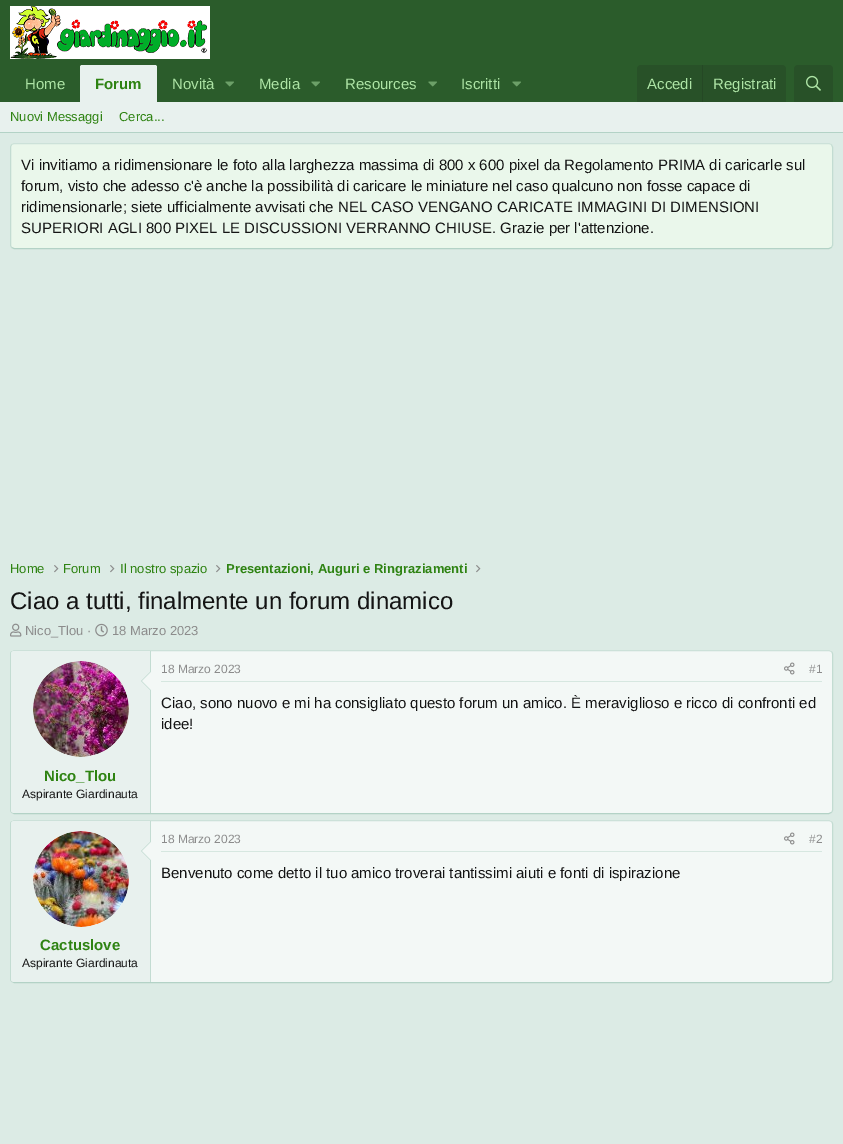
%!PS
<< /PageSize [843 1144] >> setpagedevice
/roundrect { 5 dict begin { /r /h /w /y /x } { exch def } forall
  x r add y moveto x w add y 2 copy h add r arct x w add y h add x 1 index r arct
  x y h add x y r arct x y 2 copy exch w add exch r arct closepath end } def
/picture { 5 dict begin { /h /w /y /x /name } { exch def } forall
  gsave x y translate w h scale
  w h 8 [w 0 0 h 0 0] name (r) file false 3 colorimage grestore end } def
0 1144 translate 1 -1 scale
4 setmiterlimit
0.863 0.922 0.898 setrgbcolor
0 0 843 1144 rectfill
0.169 0.361 0.169 setrgbcolor
0 0 843 102 rectfill
(img1.rgb) 10 6 200 53 picture
/LiberationSans-Regular [15 0 0 -15 0 0] selectfont
0.678 0.894 0.647 setrgbcolor
25 89 moveto (Home) show
0.91 0.945 0.933 setrgbcolor
newpath 82 65 moveto 155 65 lineto 156 65 157 66 157 67 curveto 157 102 lineto 80 102 lineto 80 67 lineto 80 66 81 65 82 65 curveto closepath fill
/LiberationSans-Bold [15 0 0 -15 0 0] selectfont
0.18 0.514 0.071 setrgbcolor
95 89 moveto (Forum) show
/LiberationSans-Regular [15 0 0 -15 0 0] selectfont
0.678 0.894 0.647 setrgbcolor
172 89 moveto (Novità) show
(img2.rgb) 225 81 9 6 picture
259 89 moveto (Media) show
(img2.rgb) 311 81 9 6 picture
345 89 moveto (Resources) show
(img2.rgb) 428 81 9 6 picture
461 89 moveto (Iscritti) show
(img2.rgb) 512 81 9 6 picture
0.157 0.318 0.157 setrgbcolor
newpath 641 65 moveto 782 65 lineto 784 65 786 67 786 69 curveto 786 102 lineto 637 102 lineto 637 69 lineto 637 67 639 65 641 65 curveto closepath fill
0.678 0.894 0.647 setrgbcolor
647 89 moveto (Accedi) show
0.145 0.282 0.145 setrgbcolor
702 65 1 37 rectfill
0.678 0.894 0.647 setrgbcolor
713 89 moveto (Registrati) show
0.157 0.318 0.157 setrgbcolor
newpath 798 65 moveto 829 65 lineto 831 65 833 67 833 69 curveto 833 102 lineto 794 102 lineto 794 69 lineto 794 67 796 65 798 65 curveto closepath fill
(img3.rgb) 806 75 15 16 picture
0.91 0.945 0.933 setrgbcolor
0 102 843 30 rectfill
0.702 0.824 0.776 setrgbcolor
0 132 843 1 rectfill
/LiberationSans-Regular [13 0 0 -13 0 0] selectfont
0.18 0.514 0.071 setrgbcolor
10 121 moveto (Nuovi Messaggi) show
119 121 moveto (Cerca...) show
0.918 0.969 0.922 setrgbcolor
10 143 823 106 4 roundrect fill
0.8 0.882 0.851 setrgbcolor
newpath 11.5 144.5 moveto 14 143.5 lineto 829 143.5 lineto 831.5 144.5 lineto stroke
0.765 0.863 0.824 setrgbcolor
newpath 831.5 144.5 moveto 832.5 147 lineto 832.5 245.5 lineto 831.5 247.5 lineto stroke
0.702 0.824 0.776 setrgbcolor
newpath 831.5 247.5 moveto 829 248.5 lineto 14 248.5 lineto 11.5 247.5 lineto stroke
0.765 0.863 0.824 setrgbcolor
newpath 11.5 247.5 moveto 10.5 245.5 lineto 10.5 163.5 lineto 10.5 147 lineto 11.5 144.5 lineto stroke
/LiberationSans-Regular [15 0 0 -15 0 0] selectfont
0.078 setgray
21 170 moveto (Vi invitiamo a ridimensionare le foto alla larghezza massima di 800 x 600 pixel da Regolamento PRIMA di caricarle sul) show
21 191 moveto (forum, visto che adesso c'è anche la possibilità di caricare le miniature nel caso qualcuno non fosse capace di) show
21 212 moveto (ridimensionarle; siete ufficialmente avvisati che NEL CASO VENGANO CARICATE IMMAGINI DI DIMENSIONI) show
21 233 moveto (SUPERIORI AGLI 800 PIXEL LE DISCUSSIONI VERRANNO CHIUSE. Grazie per l'attenzione.) show
/LiberationSans-Regular [13 0 0 -13 0 0] selectfont
0.18 0.514 0.071 setrgbcolor
10 573 moveto (Home) show
(img4.rgb) 54 565 5 8 picture
63 573 moveto (Forum) show
(img4.rgb) 110 565 5 8 picture
120 573 moveto (Il nostro spazio) show
(img4.rgb) 216 565 5 8 picture
/LiberationSans-Bold [13 0 0 -13 0 0] selectfont
226 573 moveto (Presentazioni, Auguri e Ringraziamenti) show
(img4.rgb) 476 565 5 8 picture
/LiberationSans-Regular [24 0 0 -24 0 0] selectfont
0.078 setgray
10 609 moveto (Ciao a tutti, finalmente un forum dinamico) show
(img5.rgb) 10 623 12 14 picture
/LiberationSans-Regular [13 0 0 -13 0 0] selectfont
0.549 setgray
25 635 moveto (Nico_Tlou ·) show
(img6.rgb) 95 623 13 14 picture
112 635 moveto (18 Marzo 2023) show
0.953 0.973 0.965 setrgbcolor
10 650 823 164 4 roundrect fill
0.8 0.882 0.851 setrgbcolor
newpath 11.5 651.5 moveto 14 650.5 lineto 829 650.5 lineto 831.5 651.5 lineto stroke
0.765 0.863 0.824 setrgbcolor
newpath 831.5 651.5 moveto 832 652 832.5 653 832.5 654 curveto 832.5 810 lineto 832.5 811 832 812 831.5 812.5 curveto stroke
0.702 0.824 0.776 setrgbcolor
newpath 831.5 812.5 moveto 829 813.5 lineto 14 813.5 lineto 11.5 812.5 lineto stroke
0.765 0.863 0.824 setrgbcolor
newpath 11.5 812.5 moveto 11 812 10.5 811 10.5 810 curveto 10.5 654 lineto 10.5 653 11 652 11.5 651.5 curveto stroke
0.839 0.906 0.878 setrgbcolor
161 681 661 1 rectfill
/LiberationSans-Regular [12 0 0 -12 0 0] selectfont
0.549 setgray
161 673 moveto (18 Marzo 2023) show
(img7.rgb) 784 662 11 13 picture
809 673 moveto (#1) show
/LiberationSans-Regular [15 0 0 -15 0 0] selectfont
0.078 setgray
161 708 moveto (Ciao, sono nuovo e mi ha consigliato questo forum un amico. È meraviglioso e ricco di confronti ed) show
161 729 moveto (idee!) show
0.91 0.945 0.933 setrgbcolor
newpath 14 651 moveto 151 651 lineto 151 813 lineto 14 813 lineto 12.5 813 11 811.5 11 810 curveto 11 654 lineto 11 652.5 12.5 651 14 651 curveto closepath fill
0.765 0.863 0.824 setrgbcolor
150 651 1 162 rectfill
0.953 0.973 0.965 setrgbcolor
newpath 81 709 48 0 360 arc closepath fill
(img8.rgb) 33 661 96 96 picture
0.765 0.863 0.824 setrgbcolor
newpath 151 671 moveto 151 691 lineto 141 681 lineto closepath fill
0.953 0.973 0.965 setrgbcolor
newpath 151 672 moveto 151 690 lineto 142 681 lineto closepath fill
/LiberationSans-Bold [15 0 0 -15 0 0] selectfont
0.18 0.514 0.071 setrgbcolor
44 781 moveto (Nico_Tlou) show
/LiberationSans-Regular [12 0 0 -12 0 0] selectfont
0.078 setgray
22 798 moveto (Aspirante Giardinauta) show
0.953 0.973 0.965 setrgbcolor
10 820 823 163 4 roundrect fill
0.8 0.882 0.851 setrgbcolor
newpath 11.5 821.5 moveto 14 820.5 lineto 829 820.5 lineto 831.5 821.5 lineto stroke
0.765 0.863 0.824 setrgbcolor
newpath 831.5 821.5 moveto 832 822 832.5 823 832.5 824 curveto 832.5 979 lineto 832.5 980 832 981 831.5 981.5 curveto stroke
0.702 0.824 0.776 setrgbcolor
newpath 831.5 981.5 moveto 829 982.5 lineto 14 982.5 lineto 11.5 981.5 lineto stroke
0.765 0.863 0.824 setrgbcolor
newpath 11.5 981.5 moveto 11 981 10.5 980 10.5 979 curveto 10.5 824 lineto 10.5 823 11 822 11.5 821.5 curveto stroke
0.839 0.906 0.878 setrgbcolor
161 851 661 1 rectfill
0.549 setgray
161 843 moveto (18 Marzo 2023) show
(img7.rgb) 784 832 11 13 picture
809 843 moveto (#2) show
/LiberationSans-Regular [15 0 0 -15 0 0] selectfont
0.078 setgray
161 878 moveto (Benvenuto come detto il tuo amico troverai tantissimi aiuti e fonti di ispirazione) show
0.91 0.945 0.933 setrgbcolor
newpath 14 821 moveto 151 821 lineto 151 982 lineto 14 982 lineto 12.5 982 11 980.5 11 979 curveto 11 824 lineto 11 822.5 12.5 821 14 821 curveto closepath fill
0.765 0.863 0.824 setrgbcolor
150 821 1 161 rectfill
0.953 0.973 0.965 setrgbcolor
newpath 81 879 48 0 360 arc closepath fill
(img9.rgb) 33 831 96 96 picture
0.765 0.863 0.824 setrgbcolor
newpath 151 841 moveto 151 861 lineto 141 851 lineto closepath fill
0.953 0.973 0.965 setrgbcolor
newpath 151 842 moveto 151 860 lineto 142 851 lineto closepath fill
/LiberationSans-Bold [15 0 0 -15 0 0] selectfont
0.18 0.514 0.071 setrgbcolor
40 950 moveto (Cactuslove) show
/LiberationSans-Regular [12 0 0 -12 0 0] selectfont
0.078 setgray
22 967 moveto (Aspirante Giardinauta) show
showpage
